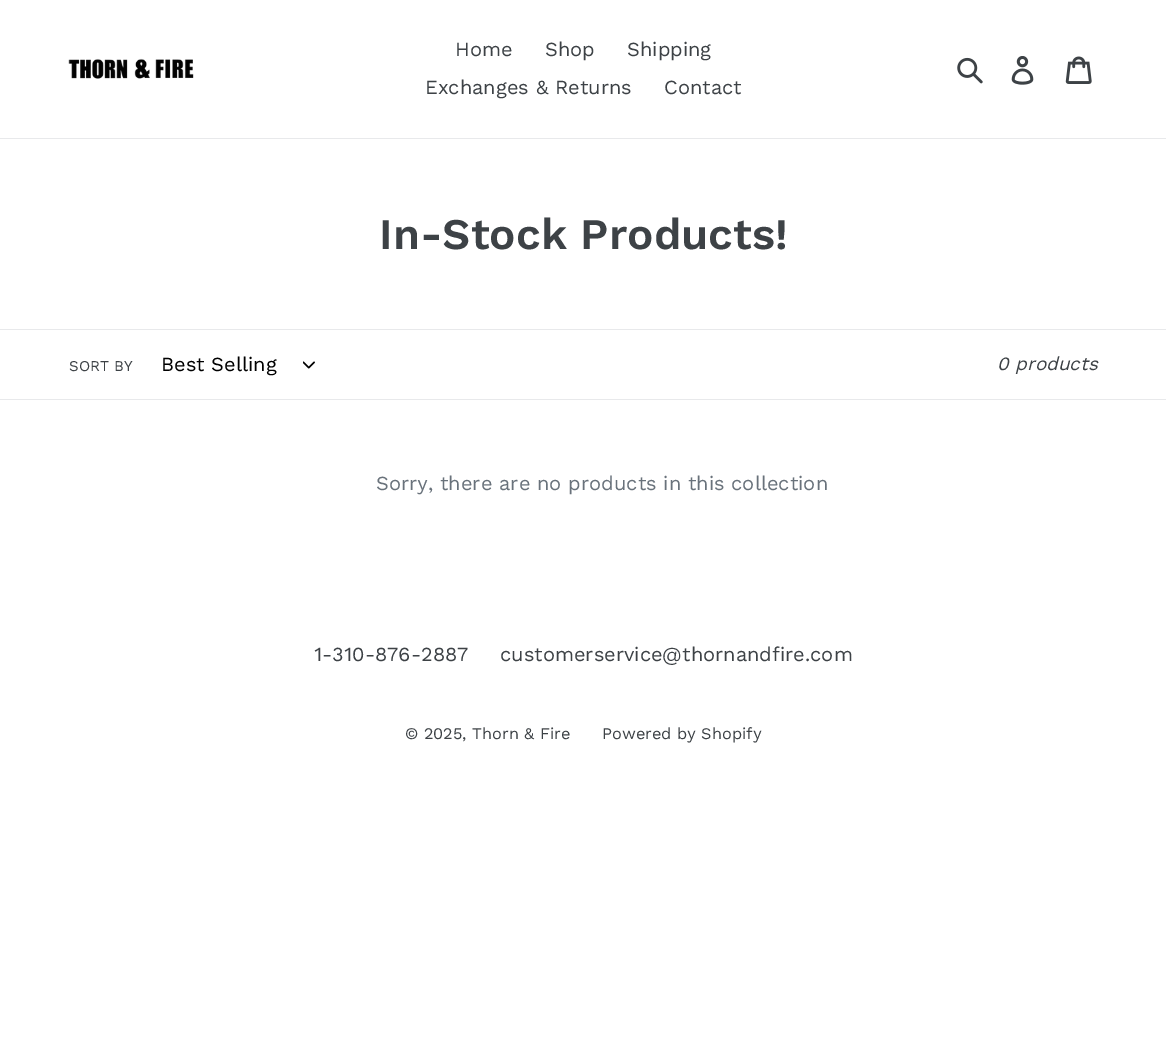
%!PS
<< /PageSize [1166 1052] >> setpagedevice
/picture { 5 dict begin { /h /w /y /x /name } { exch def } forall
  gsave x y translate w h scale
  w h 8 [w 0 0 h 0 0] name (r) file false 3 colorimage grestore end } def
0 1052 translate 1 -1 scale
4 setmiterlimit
1 setgray
0 0 1166 1052 rectfill
0.91 0.914 0.922 setrgbcolor
0 138 1166 1 rectfill
(img1.rgb) 68 58 126 21 picture
/WorkSans-Regular [20 0 0 -20 0 0] selectfont
0.239 0.259 0.275 setrgbcolor
455 56 moveto (Home) show
545 56 moveto (Shop) show
627 56 moveto (Shipping) show
425 94 moveto (Exchanges & Returns) show
664 94 moveto (Contact) show
(img2.rgb) 957 57 26 27 picture
(img3.rgb) 1011 56 23 29 picture
(img4.rgb) 1065 56 27 28 picture
/WorkSans-SemiBold [43.75 0 0 -43.75 0 0] selectfont
379 249 moveto (In-Stock Products!) show
0.91 0.914 0.922 setrgbcolor
0 329 1166 1 rectfill
0 399 1166 1 rectfill
/WorkSans-Regular [15 0 0 -15 0 0] selectfont
0.239 0.259 0.275 setrgbcolor
69 371 moveto (SORT BY) show
/WorkSans-Regular [20 0 0 -20 0 0] selectfont
0 setgray
161 371 moveto (Best Selling) show
(img5.rgb) 303 361 12 8 picture
/WorkSans-Italic [18.75 0 0 -18.75 0 0] selectfont
0.239 0.259 0.275 setrgbcolor
997 370 moveto (0 products) show
/WorkSans-Regular [20 0 0 -20 0 0] selectfont
0.412 0.447 0.482 setrgbcolor
376 490 moveto (Sorry, there are no products in this collection) show
0.239 0.259 0.275 setrgbcolor
314 661 moveto (1-310-876-2887) show
500 661 moveto (customerservice@thornandfire.com) show
/WorkSans-Regular [16.25 0 0 -16.25 0 0] selectfont
405 739 moveto (© 2025, Thorn & Fire) show
602 739 moveto (Powered by Shopify) show
showpage
